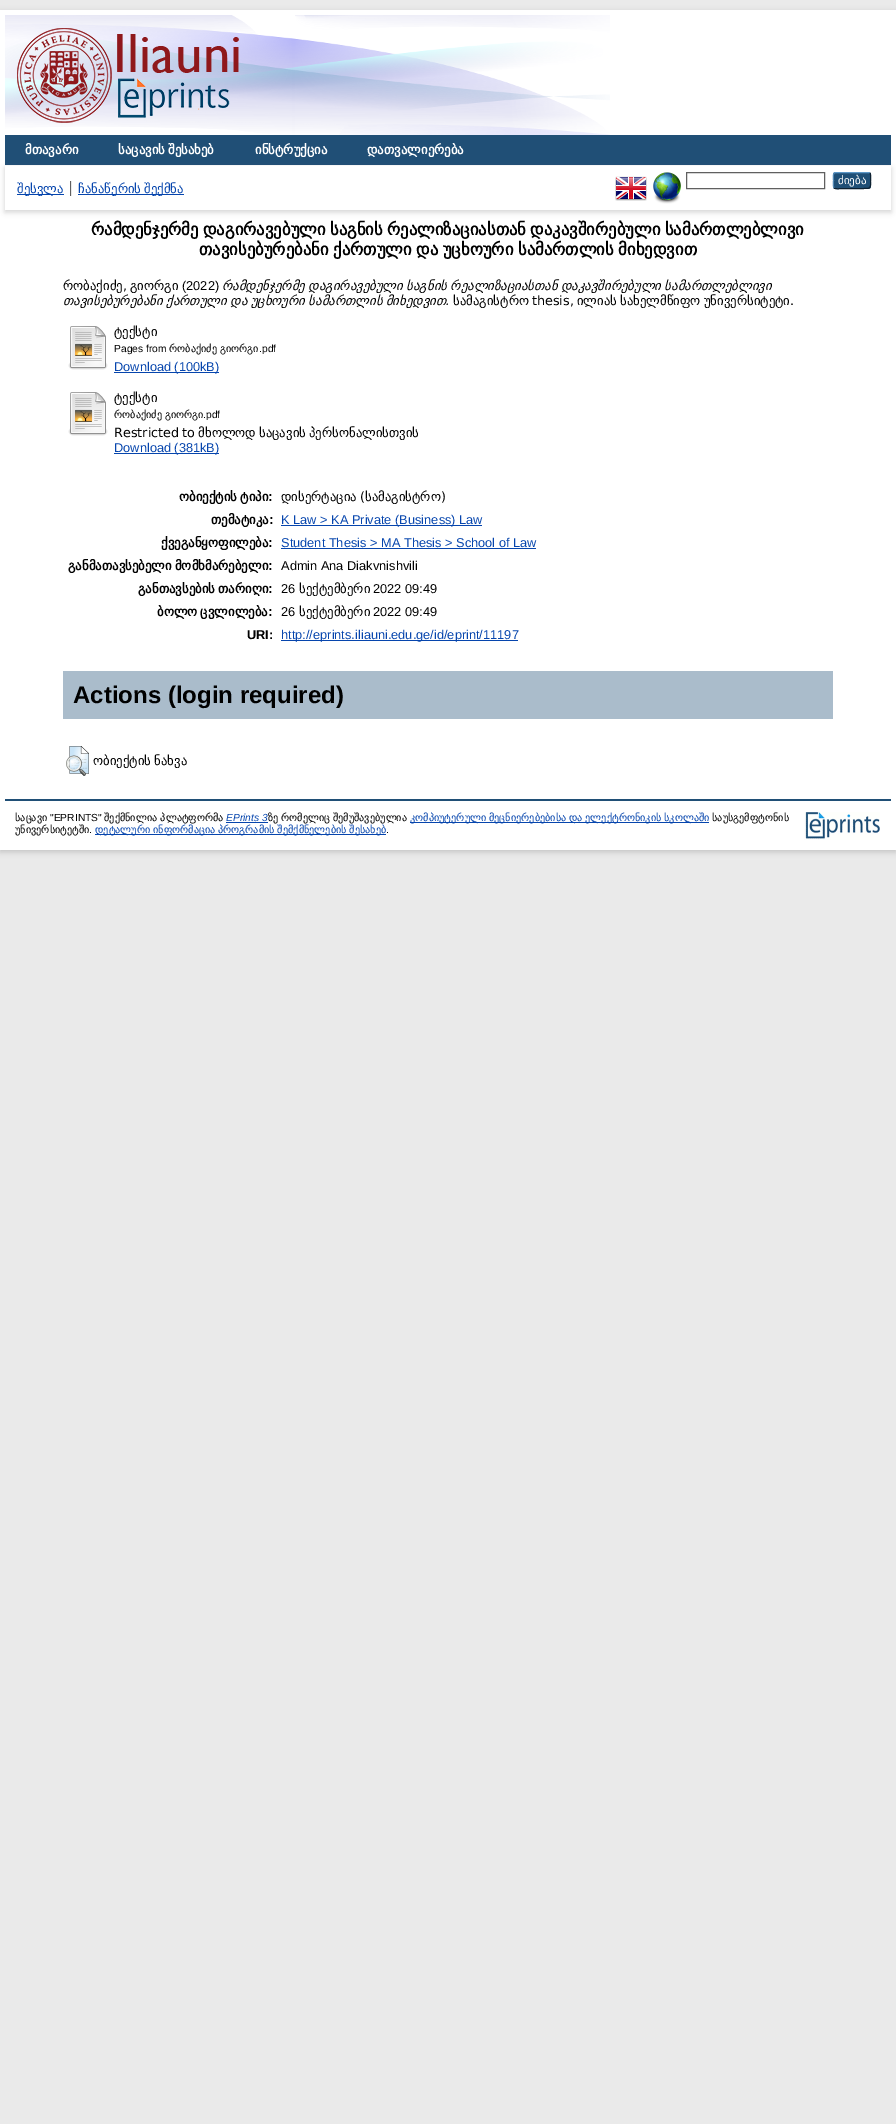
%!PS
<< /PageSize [896 2124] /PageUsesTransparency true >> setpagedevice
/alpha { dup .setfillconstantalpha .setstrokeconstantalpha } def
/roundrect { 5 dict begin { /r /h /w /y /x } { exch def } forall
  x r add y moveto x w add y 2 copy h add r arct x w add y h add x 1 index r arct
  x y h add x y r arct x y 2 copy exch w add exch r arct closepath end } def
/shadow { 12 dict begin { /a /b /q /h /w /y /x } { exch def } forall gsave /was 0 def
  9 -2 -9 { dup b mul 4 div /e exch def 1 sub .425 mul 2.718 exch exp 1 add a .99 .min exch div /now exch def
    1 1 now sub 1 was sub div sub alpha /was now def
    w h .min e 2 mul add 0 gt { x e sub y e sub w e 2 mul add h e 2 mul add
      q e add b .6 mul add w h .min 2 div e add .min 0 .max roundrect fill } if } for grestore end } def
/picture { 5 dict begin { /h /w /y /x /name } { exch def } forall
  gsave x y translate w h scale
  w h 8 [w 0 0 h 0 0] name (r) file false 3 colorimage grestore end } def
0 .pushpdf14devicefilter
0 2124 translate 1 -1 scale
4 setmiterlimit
0.918 setgray
0 0 896 2124 rectfill
0.392 setgray
0 12 896 840 0 3 0.3 shadow
1 setgray
0 10 896 840 rectfill
(img1.rgb) 5 15 605 120 picture
(img2.rgb) 17 28 222 95 picture
0.125 0.31 0.463 setrgbcolor
5 135 886 30 rectfill
/DejaVuSans-Bold [12.8 0 0 -12.8 0 0] selectfont
1 setgray
25 154 moveto (მთავარი) show
118 154 moveto -1 0 32 (საცავის შესახებ) widthshow
255 154 moveto (ინსტრუქცია) show
367 154 moveto (დათვალიერება) show
0.392 setgray
5 168 886 44 0 3 0.3 shadow
1 setgray
5 166 886 44 rectfill
(img3.rgb) 615 176 32 25 picture
(img4.rgb) 653 172 28 32 picture
0.376 setgray
686.5 172.5 138 16 rectstroke
0.122 0.31 0.463 setrgbcolor
833 172 38 17 3 roundrect fill
0.357 0.592 0.78 setrgbcolor
newpath 834 173 moveto 834.5 173 835.5 172.5 836 172.5 curveto 868 172.5 lineto 868.5 172.5 869.5 173 870 173 curveto stroke
0.051 0.129 0.192 setrgbcolor
newpath 870 173 moveto 871 174.5 870.5 179 870.5 180.5 curveto 870.5 189 871.5 188.5 862.5 188.5 curveto 841.5 188.5 lineto 840.5 188.5 836 189.5 834 188 curveto stroke
0.322 0.529 0.702 setrgbcolor
newpath 834 188 moveto 833 186.5 833.5 182 833.5 180.5 curveto 833.5 179 833 174.5 834 173 curveto stroke
/DejaVuSans-Regular [11 0 0 -11 0 0] selectfont
1 setgray
838 184 moveto (ძიება) show
0.024 0.271 0.678 setrgbcolor
17 194 47 1 rectfill
/DejaVuSans-Regular [12.8 0 0 -12.8 0 0] selectfont
17 193 moveto (შესვლა) show
0.376 setgray
70 181 1 15 rectfill
0.024 0.271 0.678 setrgbcolor
78 194 106 1 rectfill
78 193 moveto -1 0 32 (ჩანაწერის შექმნა) widthshow
0.91 setgray
71 181 1 15 rectfill
/DejaVuSans-Bold [16.65 0 0 -16.65 0 0] selectfont
0 setgray
91 235 moveto -1 0 32 (რამდენჯერმე დაგირავებული საგნის რეალიზაციასთან დაკავშირებული სამართლებლივი) widthshow
199 255 moveto -0.75 0 32 (თავისებურებანი ქართული და უცხოური სამართლის მიხედვით) widthshow
/DejaVuSans-Regular [12.8 0 0 -12.8 0 0] selectfont
63 290 moveto -1 0 32 (რობაქიძე, გიორგი) widthshow
/LiberationSans-Regular [12.8 0 0 -12.8 0 0] selectfont
182 290 moveto (\(2022\)) show
/DejaVuSans-Italic [12.8 0 0 -12.8 0 0] selectfont
222 290 moveto -0.5 0 32 (რამდენჯერმე დაგირავებული საგნის რეალიზაციასთან დაკავშირებული სამართლებლივი) widthshow
63 305 moveto -0.5 0 32 (თავისებურებანი ქართული და უცხოური სამართლის მიხედვით) widthshow
/LiberationSans-Italic [12.8 0 0 -12.8 0 0] selectfont
446 305 moveto (.) show
/DejaVuSans-Regular [12.8 0 0 -12.8 0 0] selectfont
453 305 moveto -1 0 32 (სამაგისტრო thesis, ილიას სახელმწიფო უნივერსიტეტი.) widthshow
(img5.rgb) 68 326 40 44 picture
114 336 moveto (ტექსტი) show
/LiberationSans-Regular [10.25 0 0 -10.25 0 0] selectfont
114 352 moveto (Pages from) show
/DejaVuSans-Regular [10.25 0 0 -10.25 0 0] selectfont
169 352 moveto (რობაქიძე) show
220 352 moveto (გიორგი) show
/LiberationSans-Regular [10.25 0 0 -10.25 0 0] selectfont
259 352 moveto (.pdf) show
0.024 0.271 0.678 setrgbcolor
114 372 105 1 rectfill
/LiberationSans-Regular [12.8 0 0 -12.8 0 0] selectfont
114 371 moveto (Download \(100kB\)) show
(img5.rgb) 68 392 40 44 picture
/DejaVuSans-Regular [12.8 0 0 -12.8 0 0] selectfont
0 setgray
114 402 moveto (ტექსტი) show
/DejaVuSans-Regular [10.25 0 0 -10.25 0 0] selectfont
114 418 moveto -0.5 0 32 (რობაქიძე გიორგი) widthshow
/LiberationSans-Regular [10.25 0 0 -10.25 0 0] selectfont
203 418 moveto (.pdf) show
/DejaVuSans-Regular [12.8 0 0 -12.8 0 0] selectfont
114 437 moveto -1 0 32 (Restricted to მხოლოდ საცავის პერსონალისთვის) widthshow
0.024 0.271 0.678 setrgbcolor
114 453 105 1 rectfill
/LiberationSans-Regular [12.8 0 0 -12.8 0 0] selectfont
114 452 moveto (Download \(381kB\)) show
/DejaVuSans-Bold [12.8 0 0 -12.8 0 0] selectfont
0 setgray
179 501 moveto -1 0 32 (ობიექტის ტიპი:) widthshow
/DejaVuSans-Regular [12.8 0 0 -12.8 0 0] selectfont
281 501 moveto (დისერტაცია) show
360 501 moveto (\(სამაგისტრო\)) show
/DejaVuSans-Bold [12.8 0 0 -12.8 0 0] selectfont
211 524 moveto (თემატიკა:) show
0.024 0.271 0.678 setrgbcolor
281 525 201 1 rectfill
/LiberationSans-Regular [12.8 0 0 -12.8 0 0] selectfont
281 524 moveto (K Law > KA Private \(Business\) Law) show
/DejaVuSans-Bold [12.8 0 0 -12.8 0 0] selectfont
0 setgray
161 547 moveto (ქვეგანყოფილება:) show
/LiberationSans-Regular [12.8 0 0 -12.8 0 0] selectfont
0.024 0.271 0.678 setrgbcolor
281 547 moveto (Student Thesis > MA Thesis > School of Law) show
281 548 255 1 rectfill
/DejaVuSans-Bold [12.8 0 0 -12.8 0 0] selectfont
0 setgray
68 570 moveto -1 0 32 (განმათავსებელი მომხმარებელი:) widthshow
/LiberationSans-Regular [12.8 0 0 -12.8 0 0] selectfont
281 570 moveto (Admin Ana Diakvnishvili) show
/DejaVuSans-Bold [12.8 0 0 -12.8 0 0] selectfont
138 593 moveto -1 0 32 (განთავსების თარიღი:) widthshow
/LiberationSans-Regular [12.8 0 0 -12.8 0 0] selectfont
281 593 moveto (26) show
/DejaVuSans-Regular [12.8 0 0 -12.8 0 0] selectfont
299 593 moveto (სექტემბერი) show
/LiberationSans-Regular [12.8 0 0 -12.8 0 0] selectfont
373 593 moveto (2022 09:49) show
/DejaVuSans-Bold [12.8 0 0 -12.8 0 0] selectfont
157 616 moveto -1 0 32 (ბოლო ცვლილება:) widthshow
/LiberationSans-Regular [12.8 0 0 -12.8 0 0] selectfont
281 616 moveto (26) show
/DejaVuSans-Regular [12.8 0 0 -12.8 0 0] selectfont
299 616 moveto (სექტემბერი) show
/LiberationSans-Regular [12.8 0 0 -12.8 0 0] selectfont
373 616 moveto (2022 09:49) show
/LiberationSans-Bold [12.8 0 0 -12.8 0 0] selectfont
247 639 moveto (URI:) show
0.024 0.271 0.678 setrgbcolor
281 640 237 1 rectfill
/LiberationSans-Regular [12.8 0 0 -12.8 0 0] selectfont
281 639 moveto (http://eprints.iliauni.edu.ge/id/eprint/11197) show
0.667 0.737 0.796 setrgbcolor
63 671 770 48 rectfill
/LiberationSans-Bold [24 0 0 -24 0 0] selectfont
0 setgray
73 703 moveto (Actions \(login required\)) show
(img6.rgb) 66 746 23 30 picture
/DejaVuSans-Regular [12.8 0 0 -12.8 0 0] selectfont
93 765 moveto -1 0 32 (ობიექტის ნახვა) widthshow
0.125 0.31 0.463 setrgbcolor
5 799 886 2 rectfill
/DejaVuSans-Regular [10.25 0 0 -10.25 0 0] selectfont
0 setgray
15 821 moveto (საცავი) show
/LiberationSans-Regular [10.25 0 0 -10.25 0 0] selectfont
50 821 moveto ("EPRINTS") show
/DejaVuSans-Regular [10.25 0 0 -10.25 0 0] selectfont
104 821 moveto (შექმნილია პლატფორმა) show
/LiberationSans-Italic [10.25 0 0 -10.25 0 0] selectfont
0.024 0.271 0.678 setrgbcolor
226 821 moveto (EPrints 3) show
226 822 42 1 rectfill
/DejaVuSans-Regular [10.25 0 0 -10.25 0 0] selectfont
0 setgray
268 821 moveto -0.5 0 32 (ზე რომელიც შემუშავებულია) widthshow
0.024 0.271 0.678 setrgbcolor
410 822 299 1 rectfill
410 821 moveto -0.5 0 32 (კომპიუტერული მეცნიერებებისა და ელექტრონიკის სკოლაში) widthshow
0 setgray
712 821 moveto (საუსგემფტონის) show
15 833 moveto (უნივერსიტეტში) show
/LiberationSans-Regular [10.25 0 0 -10.25 0 0] selectfont
89 833 moveto (.) show
0.024 0.271 0.678 setrgbcolor
95 834 291 1 rectfill
/DejaVuSans-Regular [10.25 0 0 -10.25 0 0] selectfont
95 833 moveto -0.5 0 32 (დეტალური ინფორმაცია პროგრამის შემქმნელების შესახებ) widthshow
/LiberationSans-Regular [10.25 0 0 -10.25 0 0] selectfont
0 setgray
386 833 moveto (.) show
(img7.rgb) 804 812 76 28 picture
.poppdf14devicefilter showpage
